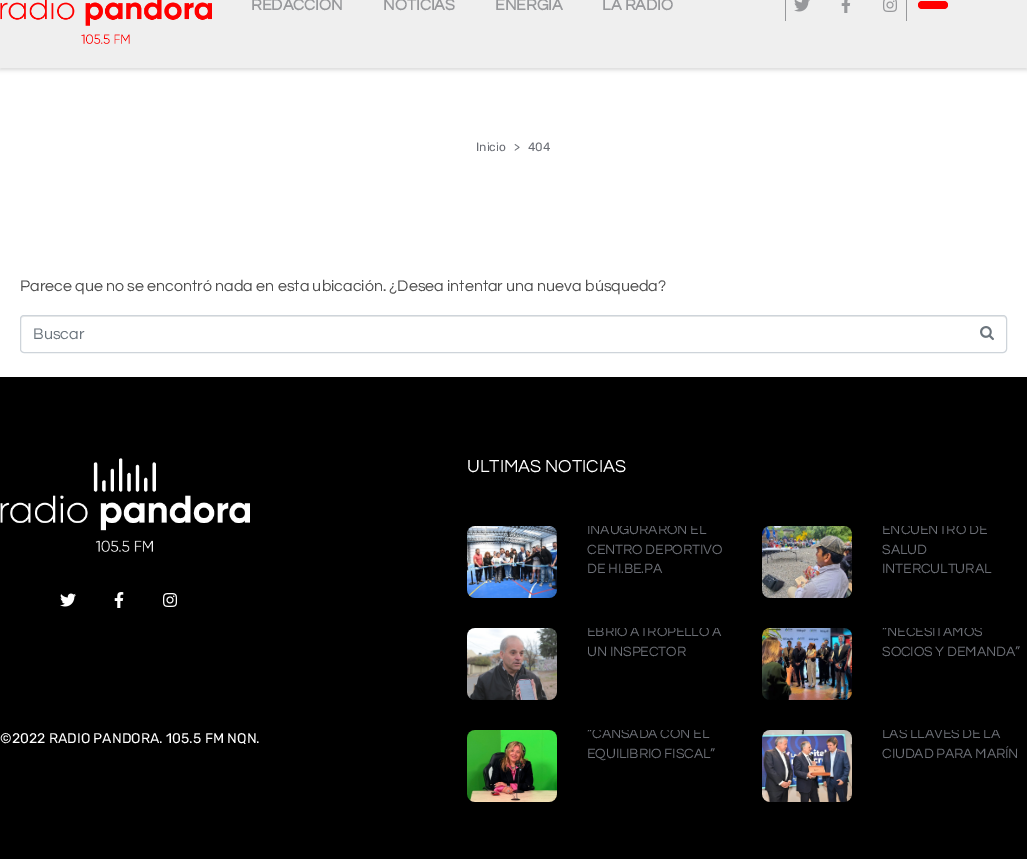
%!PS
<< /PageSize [1027 859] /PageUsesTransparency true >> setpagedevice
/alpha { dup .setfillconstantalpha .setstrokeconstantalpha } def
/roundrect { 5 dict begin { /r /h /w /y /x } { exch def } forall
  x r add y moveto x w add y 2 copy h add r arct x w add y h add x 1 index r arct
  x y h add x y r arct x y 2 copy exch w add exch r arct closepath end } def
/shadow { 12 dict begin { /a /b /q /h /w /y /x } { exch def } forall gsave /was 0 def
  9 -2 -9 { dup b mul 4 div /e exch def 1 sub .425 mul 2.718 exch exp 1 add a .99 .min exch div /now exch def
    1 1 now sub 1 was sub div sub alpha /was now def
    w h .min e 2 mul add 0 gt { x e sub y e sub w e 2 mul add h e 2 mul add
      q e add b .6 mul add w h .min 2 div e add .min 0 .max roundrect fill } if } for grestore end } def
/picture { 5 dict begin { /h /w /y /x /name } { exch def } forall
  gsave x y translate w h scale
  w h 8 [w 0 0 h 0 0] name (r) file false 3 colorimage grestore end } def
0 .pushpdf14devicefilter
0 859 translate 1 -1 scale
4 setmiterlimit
1 setgray
0 0 1027 859 rectfill
0 setgray
0 -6 1027 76 0 2 0.15 shadow
0.937 setgray
0 0 1027 68 rectfill
(img1.rgb) 0 0 212 44 picture
/Questrial-Bold [16 0 0 -16 0 0] selectfont
0.592 0.596 0.608 setrgbcolor
251 10 moveto (REDACCIÓN) show
383 10 moveto (NOTICIAS) show
495 10 moveto (ENERGÍA) show
602 10 moveto (LA RADIO) show
906 0 1 21 rectfill
785 0 1 21 rectfill
(img2.rgb) 794 0 16 12 picture
(img3.rgb) 841 0 10 13 picture
(img4.rgb) 883 0 14 12 picture
1 0 0 setrgbcolor
918 1 30 8 4 roundrect fill
/Rubik-Regular [12 0 0 -12 0 0] selectfont
0.424 0.435 0.463 setrgbcolor
476 151 moveto (Inicio) show
514 151 moveto (>) show
528 151 moveto (404) show
/Questrial-Regular [16 0 0 -16 0 0] selectfont
0.31 setgray
20 291 moveto (Parece que no se encontró nada en esta ubicación. ¿Desea intentar una nueva búsqueda?) show
0.925 setgray
newpath 24 317 moveto 1003 317 lineto 1005 317 1006 318 1006 320 curveto 1006 318 1005 316 1003 316 curveto 24 316 lineto 22 316 21 318 21 320 curveto 21 318 22 317 24 317 curveto closepath fill
0.808 0.831 0.855 setrgbcolor
20.5 315.5 986 37 3.5 roundrect stroke
0.424 0.459 0.49 setrgbcolor
33 339 moveto (Buscar) show
(img5.rgb) 980 326 14 15 picture
0 setgray
0 377 1027 482 rectfill
(img6.rgb) 0 458 250 94 picture
(img7.rgb) 60 593 16 14 picture
(img8.rgb) 114 592 10 16 picture
(img9.rgb) 163 593 14 14 picture
/Rubik-Regular [14 0 0 -14 0 0] selectfont
1 setgray
0 743 moveto (©2022 RADIO PANDORA. 105.5 FM NQN.) show
/Questrial-Regular [18 0 0 -18 0 0] selectfont
467 472 moveto (ULTIMAS NOTICIAS) show
(img10.rgb) 467 526 90 72 picture
gsave
467 526 265 72 rectclip
/Questrial-Regular [14 0 0 -14 0 0] selectfont
0.424 0.435 0.463 setrgbcolor
587 534 moveto -0.1 0 (INAUGURARON EL) ashow
grestore
/Questrial-Regular [14 0 0 -14 0 0] selectfont
0.424 0.435 0.463 setrgbcolor
587 554 moveto -0.1 0 (CENTRO DEPORTIVO) ashow
587 573 moveto -0.1 0 (DE HI.BE.PA) ashow
(img11.rgb) 762 526 90 72 picture
gsave
762 526 265 72 rectclip
882 534 moveto -0.1 0 (ENCUENTRO DE) ashow
grestore
882 554 moveto -0.1 0 (SALUD) ashow
882 573 moveto -0.1 0 (INTERCULTURAL) ashow
(img12.rgb) 467 628 90 72 picture
gsave
467 628 265 72 rectclip
587 636 moveto -0.1 0 (EBRIO ATROPELLÓ A) ashow
grestore
587 656 moveto -0.1 0 (UN INSPECTOR) ashow
(img13.rgb) 762 628 90 72 picture
gsave
762 628 265 72 rectclip
882 636 moveto -0.1 0 (“NECESITAMOS) ashow
grestore
882 656 moveto -0.1 0 (SOCIOS Y DEMANDA”) ashow
(img14.rgb) 467 730 90 72 picture
gsave
467 730 265 72 rectclip
587 738 moveto -0.1 0 (“CANSADA CON EL) ashow
grestore
587 758 moveto -0.1 0 (EQUILIBRIO FISCAL”) ashow
(img15.rgb) 762 730 90 72 picture
gsave
762 730 265 72 rectclip
882 738 moveto -0.1 0 (LAS LLAVES DE LA) ashow
grestore
882 758 moveto -0.1 0 (CIUDAD PARA MARÍN) ashow
.poppdf14devicefilter showpage
